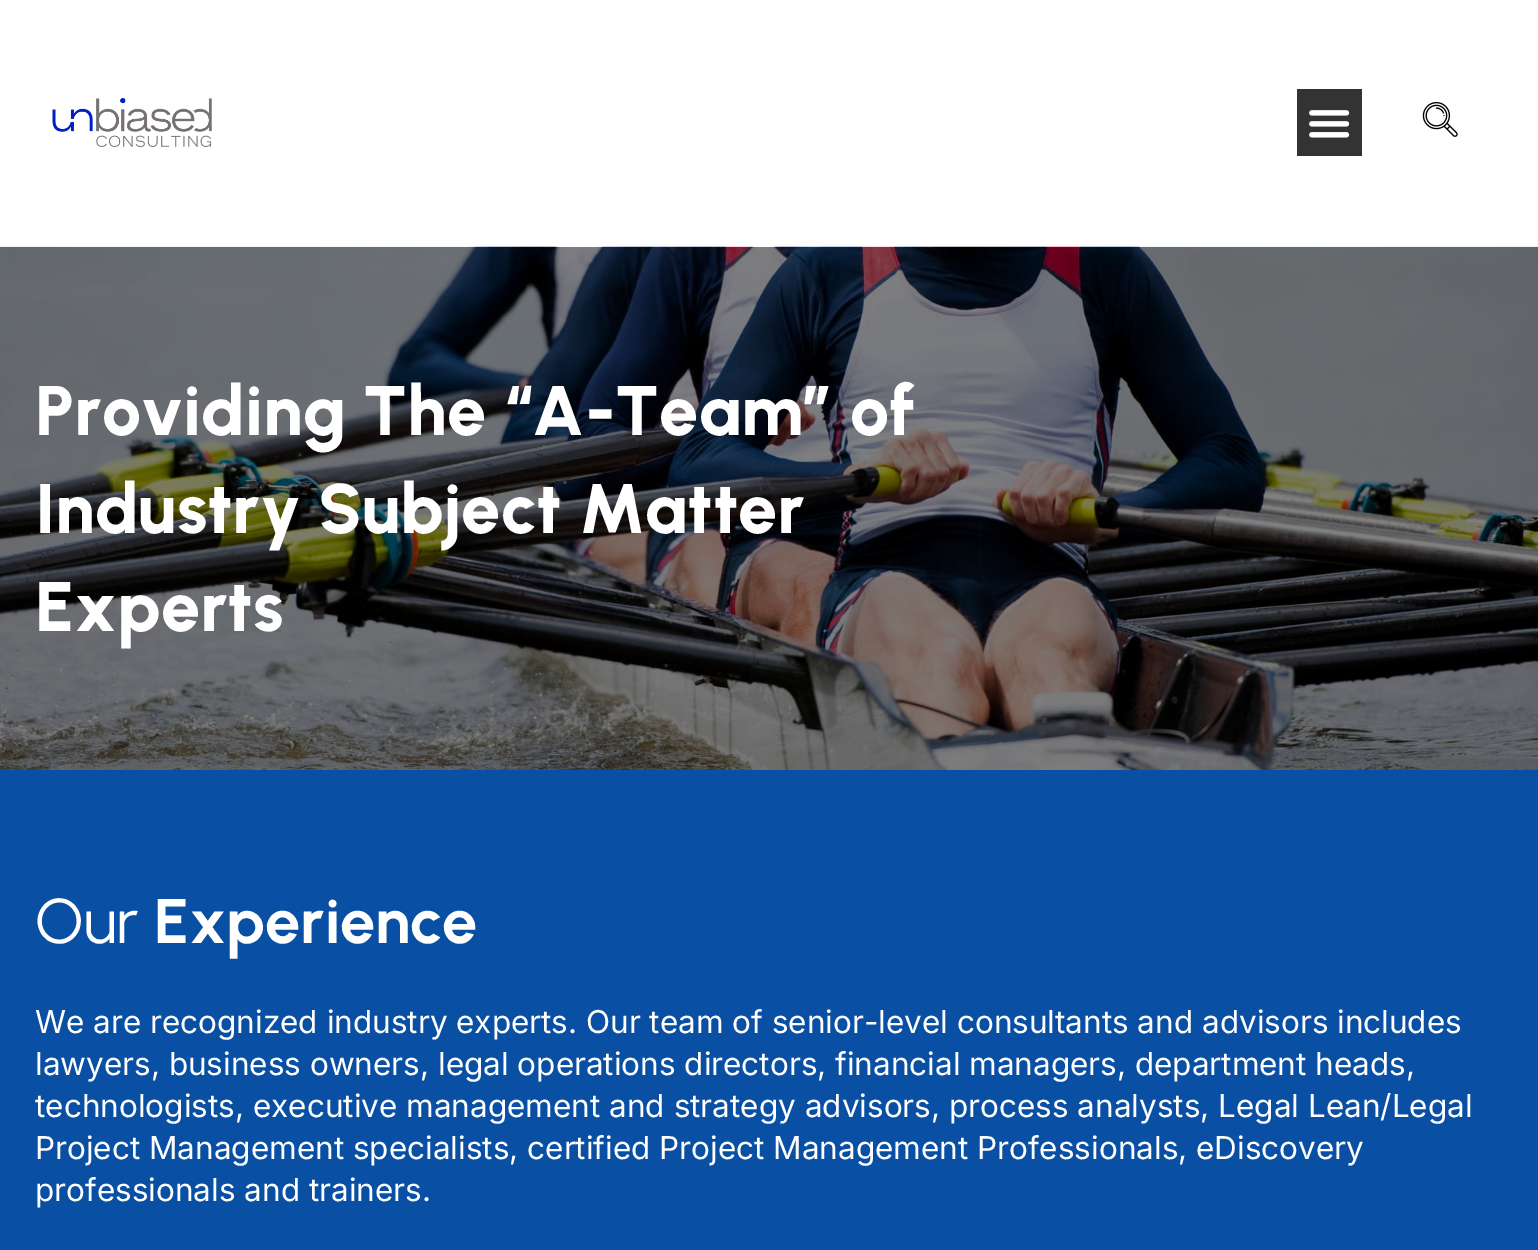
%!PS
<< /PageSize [1538 1250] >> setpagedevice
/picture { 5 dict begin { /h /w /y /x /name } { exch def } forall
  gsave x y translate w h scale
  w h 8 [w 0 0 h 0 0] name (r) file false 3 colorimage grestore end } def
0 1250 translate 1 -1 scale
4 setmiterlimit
1 setgray
0 0 1538 1250 rectfill
(img1.rgb) 52 98 160 49 picture
0.2 setgray
1297 89 65 67 rectfill
(img2.rgb) 1309 110 41 28 picture
(img3.rgb) 1422 101 36 36 picture
(img4.rgb) 0 246 1538 524 picture
/Urbanist-ExtraBold [70 0 0 -70 0 0] selectfont
1 setgray
35 435 moveto (Providing The “A-Team” of) show
35 533 moveto (Industry Subject Matter) show
35 631 moveto (Experts) show
0.035 0.31 0.643 setrgbcolor
0 770 1538 480 rectfill
/Urbanist-Regular [63 0 0 -63 0 0] selectfont
1 setgray
35 943 moveto (Our) show
/Urbanist-Bold [63 0 0 -63 0 0] selectfont
154 943 moveto (Experience) show
/Inter-Regular [31.5 0 0 -31.5 0 0] selectfont
35 1033 moveto (We are recognized industry experts. Our team of senior-level consultants and advisors includes) show
35 1075 moveto (lawyers, business owners, legal operations directors, financial managers, department heads,) show
35 1117 moveto (technologists, executive management and strategy advisors, process analysts, Legal Lean/Legal) show
35 1159 moveto (Project Management specialists, certified Project Management Professionals, eDiscovery) show
35 1201 moveto (professionals and trainers.) show
showpage
